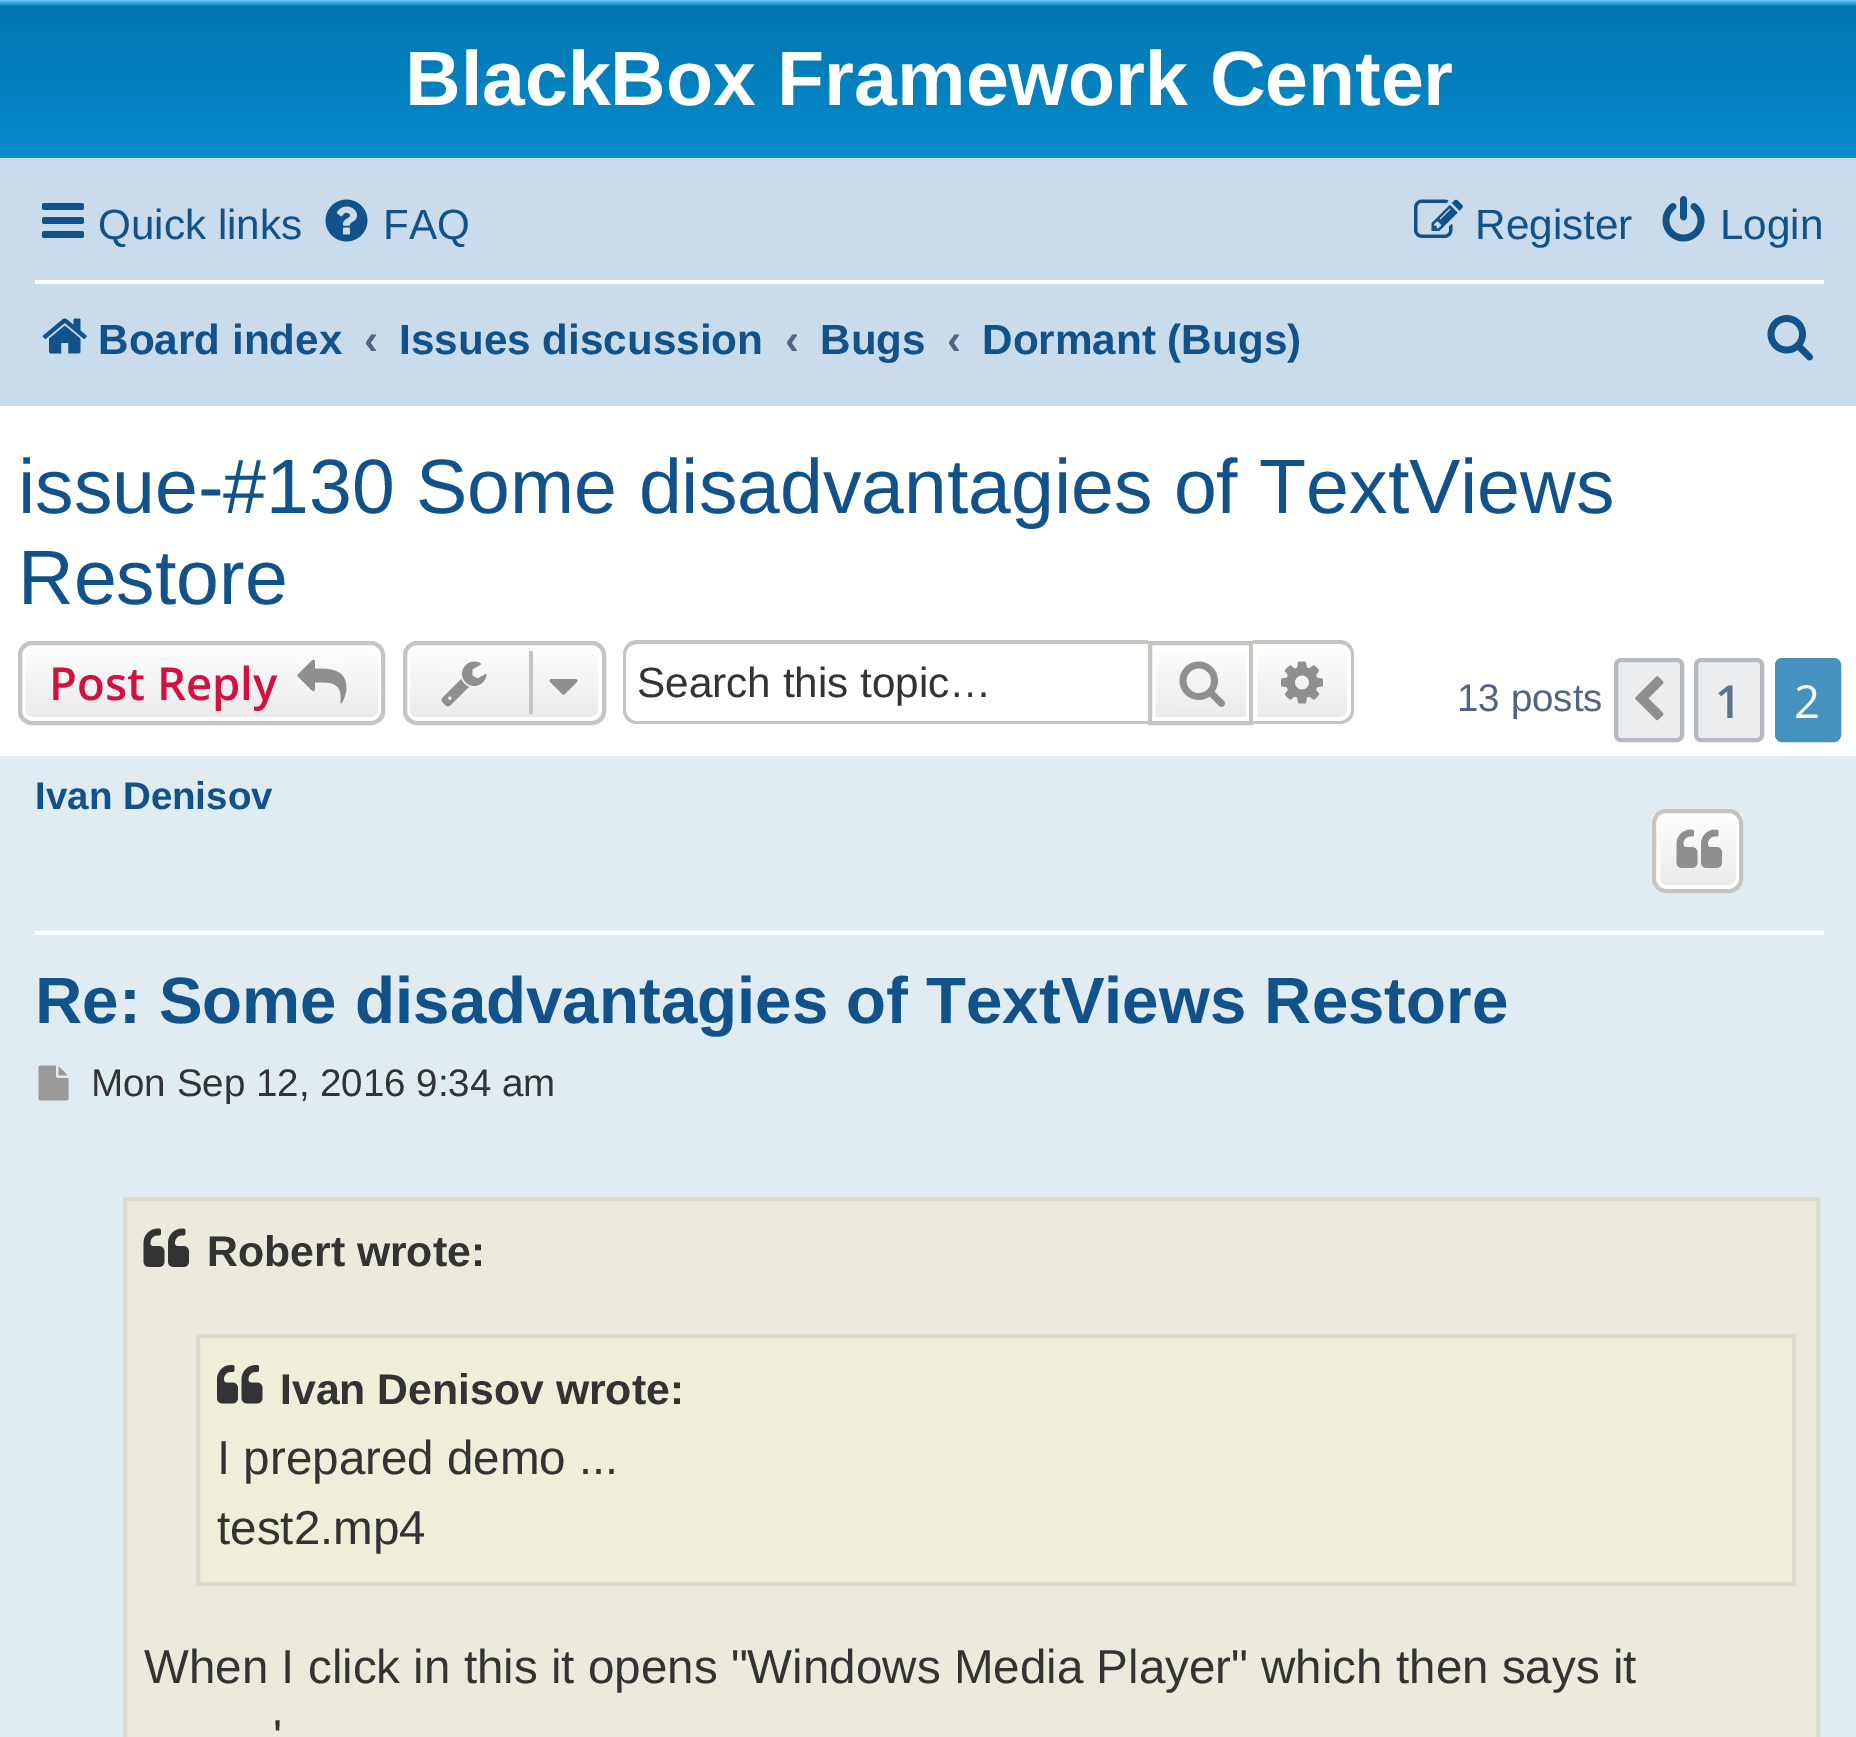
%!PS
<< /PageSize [1856 1737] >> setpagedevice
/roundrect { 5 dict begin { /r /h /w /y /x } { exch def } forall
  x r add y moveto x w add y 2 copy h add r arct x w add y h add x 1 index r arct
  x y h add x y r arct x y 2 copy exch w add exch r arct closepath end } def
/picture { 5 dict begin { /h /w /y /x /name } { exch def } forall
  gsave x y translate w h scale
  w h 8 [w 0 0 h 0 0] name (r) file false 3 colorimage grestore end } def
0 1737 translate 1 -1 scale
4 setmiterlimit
1 setgray
0 0 1856 1737 rectfill
gsave newpath 0 0 moveto 1856 0 lineto 1856 158 lineto 0 158 lineto closepath clip newpath
<< /ShadingType 2 /ColorSpace /DeviceRGB /Coords [929 0 929 322] /Extend [true true] /Function << /FunctionType 3 /Domain [0 1] /Functions [<< /FunctionType 2 /Domain [0 1] /C0 [0.416 0.808 1] /C1 [0 0.463 0.694] /N 1 >> << /FunctionType 2 /Domain [0 1] /C0 [0 0.463 0.694] /C1 [0.071 0.639 0.922] /N 1 >>] /Bounds [0.02] /Encode [0 1 0 1] >> >> shfill grestore
/LiberationSans-Bold [77 0 0 -77 0 0] selectfont
405 105 moveto (BlackBox Framework Center) show
0.792 0.863 0.922 setrgbcolor
0 158 1856 248 rectfill
(img1.rgb) 42 203 42 35 picture
/LiberationSans-Regular [42.25 0 0 -42.25 0 0] selectfont
0.063 0.322 0.537 setrgbcolor
98 239 moveto (Quick links) show
(img2.rgb) 325 199 43 43 picture
383 239 moveto (FAQ) show
(img3.rgb) 1414 199 49 39 picture
1475 239 moveto (Register) show
(img4.rgb) 1662 196 43 46 picture
1720 239 moveto (Login) show
1 setgray
35 280 1789 4 rectfill
(img5.rgb) 42 318 45 36 picture
/LiberationSans-Bold [42.25 0 0 -42.25 0 0] selectfont
0.063 0.322 0.537 setrgbcolor
98 354 moveto (Board index) show
0.325 0.392 0.51 setrgbcolor
364 354 moveto (‹) show
0.063 0.322 0.537 setrgbcolor
399 354 moveto (Issues discussion) show
0.325 0.392 0.51 setrgbcolor
785 354 moveto (‹) show
0.063 0.322 0.537 setrgbcolor
820 354 moveto (Bugs) show
0.325 0.392 0.51 setrgbcolor
947 354 moveto (‹) show
0.063 0.322 0.537 setrgbcolor
982 354 moveto (Dormant \(Bugs\)) show
(img6.rgb) 1767 315 46 46 picture
/LiberationSans-Regular [77 0 0 -77 0 0] selectfont
18 513 moveto (issue-#130 Some disadvantagies of TextViews) show
18 604 moveto (Restore) show
gsave
18 641 367 84 14 roundrect clip newpath
gsave newpath 18 644 moveto 385 644 lineto 385 721 lineto 18 721 lineto closepath clip newpath
<< /ShadingType 2 /ColorSpace /DeviceRGB /Coords [201 644 201 721] /Extend [true true] /Function << /FunctionType 2 /Domain [0 1] /C0 [1 1 1] /C1 [0.914 0.914 0.914] /N 1 >> >> shfill grestore
grestore
1 setgray
4 setlinewidth
23 646 357 73 9 roundrect stroke
0.78 0.765 0.749 setrgbcolor
20 643 363 80 12 roundrect stroke
/OpenSans-SemiBold [45.5 0 0 -45.5 0 0] selectfont
0.827 0.067 0.255 setrgbcolor
49 700 moveto (Post Reply) show
(img7.rgb) 297 659 50 45 picture
gsave
403 641 203 84 14 roundrect clip newpath
gsave newpath 403 644 moveto 606 644 lineto 606 721 lineto 403 721 lineto closepath clip newpath
<< /ShadingType 2 /ColorSpace /DeviceRGB /Coords [504 644 504 721] /Extend [true true] /Function << /FunctionType 2 /Domain [0 1] /C0 [1 1 1] /C1 [0.914 0.914 0.914] /N 1 >> >> shfill grestore
grestore
1 setgray
408 646 192 73 9 roundrect stroke
0.78 0.765 0.749 setrgbcolor
405 643 199 80 12 roundrect stroke
(img8.rgb) 441 661 46 46 picture
529 651 4 63 rectfill
(img9.rgb) 549 679 29 16 picture
newpath 637 640 moveto 1148 640 lineto 1148 724 lineto 637 724 lineto 629 724 623 718 623 710 curveto 623 654 lineto 623 647 629 640 637 640 curveto closepath 637 644 moveto 1148 644 lineto 1148 721 lineto 637 721 lineto 631 721 626 716 626 710 curveto 626 654 lineto 626 649 631 644 637 644 curveto closepath eofill
/LiberationSans-Regular [42.25 0 0 -42.25 0 0] selectfont
0.2 setgray
637 697 moveto (Search this topic…) show
gsave newpath 1156 653 moveto 1246 653 lineto 1246 717 lineto 1156 717 lineto closepath clip newpath
<< /ShadingType 2 /ColorSpace /DeviceRGB /Coords [1201 644 1201 721] /Extend [true true] /Function << /FunctionType 2 /Domain [0 1] /C0 [1 1 1] /C1 [0.914 0.914 0.914] /N 1 >> >> shfill grestore
0.78 0.765 0.749 setrgbcolor
1150 643 101 80 rectstroke
(img10.rgb) 1179 661 46 46 picture
gsave newpath 1255 646 moveto 1340 646 lineto 1345 646 1349 650 1349 655 curveto 1349 710 lineto 1349 715 1345 719 1340 719 curveto 1255 719 lineto closepath clip newpath
<< /ShadingType 2 /ColorSpace /DeviceRGB /Coords [1302 644 1302 721] /Extend [true true] /Function << /FunctionType 2 /Domain [0 1] /C0 [1 1 1] /C1 [0.914 0.914 0.914] /N 1 >> >> shfill grestore
1 setgray
newpath 1255 646 moveto 1340 646 lineto 1345 646 1349 650 1349 655 curveto 1349 710 lineto 1349 715 1345 719 1340 719 curveto 1255 719 lineto closepath stroke
0.78 0.765 0.749 setrgbcolor
newpath 1253 640 moveto 1340 640 lineto 1348 640 1354 647 1354 654 curveto 1354 710 lineto 1354 718 1348 724 1340 724 curveto 1253 724 lineto closepath 1253 644 moveto 1340 644 lineto 1346 644 1351 649 1351 654 curveto 1351 710 lineto 1351 716 1346 721 1340 721 curveto 1253 721 lineto closepath eofill
(img11.rgb) 1281 661 42 43 picture
/LiberationSans-Regular [38.5 0 0 -38.5 0 0] selectfont
0.325 0.392 0.51 setrgbcolor
1457 711 moveto (13 posts) show
0.925 0.929 0.933 setrgbcolor
1616 660 66 80 5 roundrect gsave fill grestore
0.706 0.729 0.753 setrgbcolor
stroke
(img12.rgb) 1635 676 29 45 picture
0.925 0.929 0.933 setrgbcolor
1696 660 66 80 5 roundrect gsave fill grestore
0.706 0.729 0.753 setrgbcolor
stroke
/OpenSans-SemiBold [45.5 0 0 -45.5 0 0] selectfont
0.361 0.459 0.549 setrgbcolor
1715 718 moveto (1) show
0.275 0.573 0.749 setrgbcolor
1777 660 62 80 5 roundrect gsave fill grestore
stroke
/OpenSans-Regular [45.5 0 0 -45.5 0 0] selectfont
1 setgray
1794 718 moveto (2) show
0.882 0.922 0.949 setrgbcolor
0 756 1856 981 rectfill
1 setgray
35 931 1789 4 rectfill
/LiberationSans-Bold [38.5 0 0 -38.5 0 0] selectfont
0.063 0.322 0.537 setrgbcolor
35 809 moveto (Ivan Denisov) show
gsave
1652 809 91 84 14 roundrect clip newpath
gsave newpath 1652 812 moveto 1743 812 lineto 1743 889 lineto 1652 889 lineto closepath clip newpath
<< /ShadingType 2 /ColorSpace /DeviceRGB /Coords [1698 812 1698 889] /Extend [true true] /Function << /FunctionType 2 /Domain [0 1] /C0 [1 1 1] /C1 [0.914 0.914 0.914] /N 1 >> >> shfill grestore
grestore
1 setgray
1658 814 80 73 9 roundrect stroke
0.78 0.765 0.749 setrgbcolor
1654 811 87 80 12 roundrect stroke
(img13.rgb) 1676 829 46 39 picture
/LiberationSans-Bold [65.45 0 0 -65.45 0 0] selectfont
0.063 0.322 0.537 setrgbcolor
35 1023 moveto (Re: Some disadvantagies of TextViews Restore) show
(img14.rgb) 38 1065 31 36 picture
/LiberationSans-Regular [38.5 0 0 -38.5 0 0] selectfont
0.2 setgray
91 1096 moveto (Mon Sep 12, 2016 9:34 am) show
0.922 0.918 0.867 setrgbcolor
newpath 125 1199 moveto 1818 1199 lineto 1818 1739 lineto 125 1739 lineto closepath gsave fill grestore
0.859 0.859 0.808 setrgbcolor
stroke
(img15.rgb) 143 1228 46 39 picture
/LiberationSans-Bold [42.75 0 0 -42.75 0 0] selectfont
0.2 setgray
207 1266 moveto (Robert wrote:) show
0.937 0.933 0.851 setrgbcolor
newpath 198 1336 moveto 1794 1336 lineto 1794 1584 lineto 198 1584 lineto closepath gsave fill grestore
0.859 0.859 0.808 setrgbcolor
stroke
(img16.rgb) 217 1365 46 39 picture
0.2 setgray
280 1404 moveto (Ivan Denisov wrote:) show
/LiberationSans-Regular [47.55 0 0 -47.55 0 0] selectfont
217 1474 moveto (I prepared demo ...) show
217 1544 moveto (test2.mp4) show
144 1683 moveto (When I click in this it opens "Windows Media Player" which then says it) show
273 1753 moveto (') show
showpage
